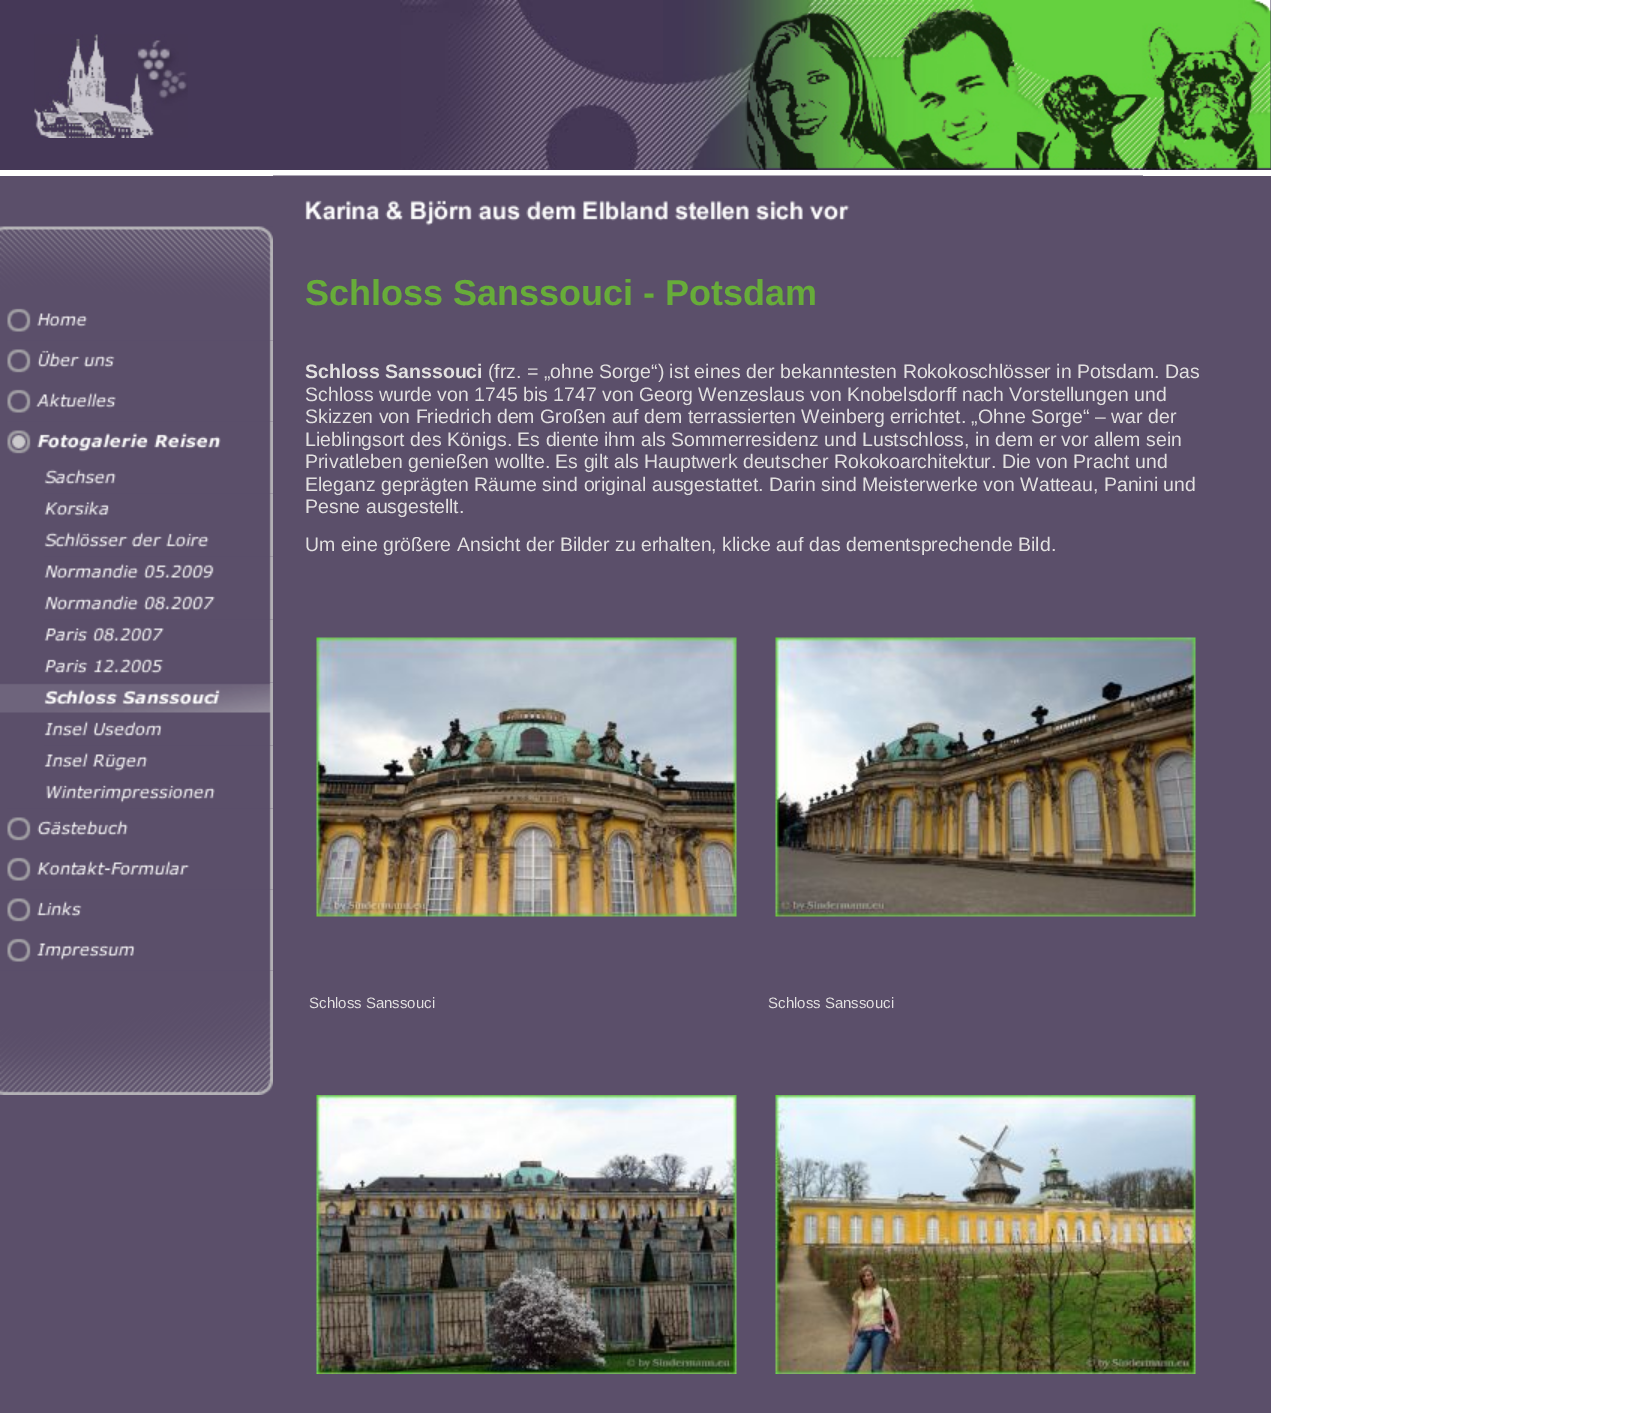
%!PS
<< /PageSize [1625 1413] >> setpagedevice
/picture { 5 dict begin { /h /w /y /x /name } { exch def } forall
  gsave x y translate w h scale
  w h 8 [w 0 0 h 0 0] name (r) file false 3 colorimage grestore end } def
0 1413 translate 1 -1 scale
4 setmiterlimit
1 setgray
0 0 1625 1413 rectfill
0.271 0.22 0.341 setrgbcolor
0 0 1271 170 rectfill
(img1.rgb) 34 34 154 104 picture
(img2.rgb) 400 0 263 170 picture
(img3.rgb) 663 0 608 170 picture
0.357 0.31 0.416 setrgbcolor
0 176 1271 51 rectfill
(img4.rgb) 273 175 870 51 picture
0 300 273 1113 rectfill
(img5.rgb) 0 226 273 74 picture
(img6.rgb) 7 300 266 41 picture
(img7.rgb) 7 340 266 41 picture
(img8.rgb) 7 381 266 41 picture
(img9.rgb) 7 421 266 41 picture
(img10.rgb) 44 462 229 32 picture
(img11.rgb) 44 493 229 32 picture
(img12.rgb) 44 525 229 32 picture
(img13.rgb) 44 556 229 32 picture
(img14.rgb) 44 588 229 32 picture
(img15.rgb) 44 619 229 32 picture
(img16.rgb) 44 651 229 32 picture
(img17.rgb) 0 682 273 32 picture
(img18.rgb) 44 714 229 32 picture
(img19.rgb) 44 745 229 32 picture
(img20.rgb) 46 777 227 32 picture
(img21.rgb) 7 808 266 41 picture
(img22.rgb) 7 849 266 41 picture
(img23.rgb) 7 889 266 41 picture
(img24.rgb) 7 930 266 41 picture
(img25.rgb) 0 970 273 125 picture
273 227 998 1186 rectfill
/LiberationSans-Bold [36 0 0 -36 0 0] selectfont
0.404 0.675 0.224 setrgbcolor
305 305 moveto (Schloss Sanssouci - Potsdam) show
/LiberationSans-Bold [19.5 0 0 -19.5 0 0] selectfont
0.886 0.878 0.878 setrgbcolor
305 378 moveto (Schloss Sanssouci) show
/LiberationSans-Regular [19.5 0 0 -19.5 0 0] selectfont
488 378 moveto (\(frz. = „ohne Sorge“\) ist eines der bekanntesten Rokokoschlösser in Potsdam. Das) show
305 401 moveto (Schloss wurde von 1745 bis 1747 von Georg Wenzeslaus von Knobelsdorff nach Vorstellungen und) show
305 423 moveto (Skizzen von Friedrich dem Großen auf dem terrassierten Weinberg errichtet. „Ohne Sorge“ – war der) show
305 446 moveto (Lieblingsort des Königs. Es diente ihm als Sommerresidenz und Lustschloss, in dem er vor allem sein) show
305 468 moveto (Privatleben genießen wollte. Es gilt als Hauptwerk deutscher Rokokoarchitektur. Die von Pracht und) show
305 491 moveto (Eleganz geprägten Räume sind original ausgestattet. Darin sind Meisterwerke von Watteau, Panini und) show
305 513 moveto (Pesne ausgestellt.) show
305 551 moveto (Um eine größere Ansicht der Bilder zu erhalten, klicke auf das dementsprechende Bild.) show
(img26.rgb) 316 637 421 280 picture
/LiberationSans-Regular [15 0 0 -15 0 0] selectfont
309 1008 moveto (Schloss Sanssouci) show
(img27.rgb) 775 637 421 280 picture
768 1008 moveto (Schloss Sanssouci) show
(img28.rgb) 316 1095 421 279 picture
(img29.rgb) 775 1095 421 279 picture
showpage
